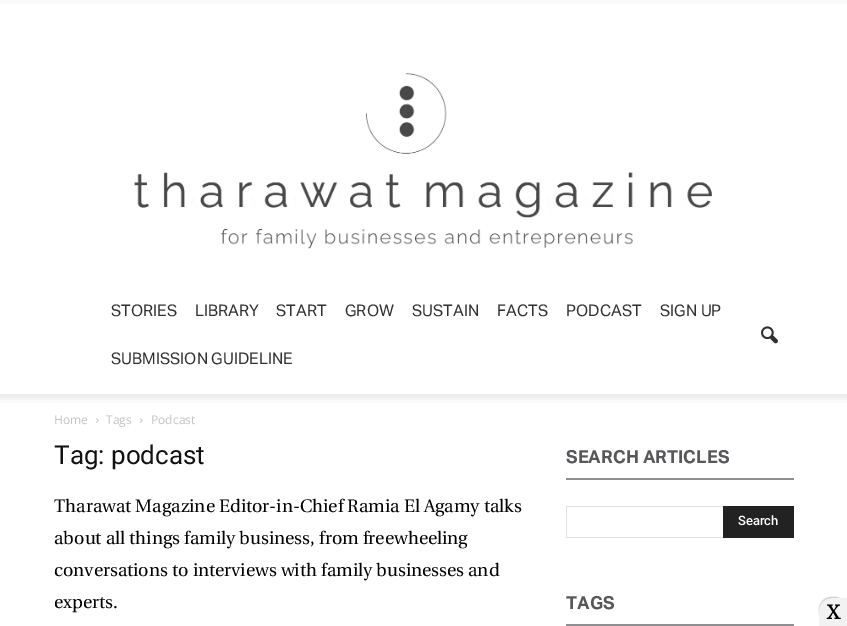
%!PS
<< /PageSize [847 626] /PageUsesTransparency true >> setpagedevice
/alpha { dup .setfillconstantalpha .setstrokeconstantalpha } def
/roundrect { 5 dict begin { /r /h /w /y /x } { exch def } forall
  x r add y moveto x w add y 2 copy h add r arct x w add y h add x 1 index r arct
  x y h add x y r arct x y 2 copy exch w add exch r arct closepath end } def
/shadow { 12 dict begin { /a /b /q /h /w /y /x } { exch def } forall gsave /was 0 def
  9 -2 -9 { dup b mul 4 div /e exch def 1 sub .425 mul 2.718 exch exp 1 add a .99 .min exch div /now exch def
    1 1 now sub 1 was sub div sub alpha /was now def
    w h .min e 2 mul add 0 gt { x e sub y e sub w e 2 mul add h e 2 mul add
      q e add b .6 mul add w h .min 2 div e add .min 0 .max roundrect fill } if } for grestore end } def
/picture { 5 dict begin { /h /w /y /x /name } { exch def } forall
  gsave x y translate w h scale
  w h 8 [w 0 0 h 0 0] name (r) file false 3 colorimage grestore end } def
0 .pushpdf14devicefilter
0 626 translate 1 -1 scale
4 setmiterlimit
1 setgray
0 0 847 626 rectfill
0.976 setgray
0 0 847 4 rectfill
(img1.rgb) 134 73 578 176 picture
/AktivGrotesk-Regular [16 0 0 -16 0 0] selectfont
0.188 setgray
111 316 moveto (STORIES) show
195 316 moveto (LIBRARY) show
276 316 moveto (START) show
345 316 moveto (GROW) show
412 316 moveto (SUSTAIN) show
497 316 moveto (FACTS) show
566 316 moveto (PODCAST) show
660 316 moveto (SIGN UP) show
111 364 moveto (SUBMISSION GUIDELINE) show
(img2.rgb) 761 326 17 18 picture
(img3.rgb) 0 394 847 9 picture
/OpenSans-Regular [12 0 0 -12 0 0] selectfont
0.765 setgray
54 424 moveto (Home) show
(img4.rgb) 96 418 3 5 picture
106 424 moveto (Tags) show
(img4.rgb) 140 418 3 5 picture
151 424 moveto (Podcast) show
/Roboto-Regular [26 0 0 -26 0 0] selectfont
0.067 setgray
54 464 moveto (Tag: podcast) show
/Utopia-Regular [18 0 0 -18 0 0] selectfont
0 setgray
54 512 moveto (Tharawat Magazine Editor-in-Chief Ramia El Agamy talks) show
54 544 moveto (about all things family business, from freewheeling) show
54 576 moveto (conversations to interviews with family businesses and) show
54 608 moveto (experts.) show
0.561 0.561 0.569 setrgbcolor
566 478 228 2 rectfill
/AktivGrotesk-Bold [18 0 0 -18 0 0] selectfont
0.345 0.345 0.357 setrgbcolor
566 463 moveto (SEARCH ARTICLES) show
0.882 setgray
566 506 157 1 rectfill
566 537 157 1 rectfill
566 506 1 32 rectfill
0.133 setgray
723 506 71 32 rectfill
/Roboto-Medium [13 0 0 -13 0 0] selectfont
1 setgray
738 525 moveto (Search) show
0.561 0.561 0.569 setrgbcolor
566 624 228 2 rectfill
gsave
566 586 228 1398 rectclip
/AktivGrotesk-Bold [18 0 0 -18 0 0] selectfont
0.345 0.345 0.357 setrgbcolor
566 609 moveto (TAGS) show
grestore
gsave
newpath 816 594 moveto 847 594 lineto 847 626 lineto 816 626 lineto closepath 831 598 moveto 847 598 lineto 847 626 lineto 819 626 lineto 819 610 lineto 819 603.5 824.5 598 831 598 curveto closepath eoclip newpath
0 setgray
819 597 28 28 12 0.5 0.2 shadow
grestore
0.7 alpha
0.929 setgray
newpath 831 598 moveto 847 598 lineto 847 626 lineto 819 626 lineto 819 610 lineto 819 603.5 824.5 598 831 598 curveto closepath fill
/Utopia-Bold [20 0 0 -20 0 0] selectfont
1 alpha
0 setgray
827 619 moveto (X) show
.poppdf14devicefilter showpage
